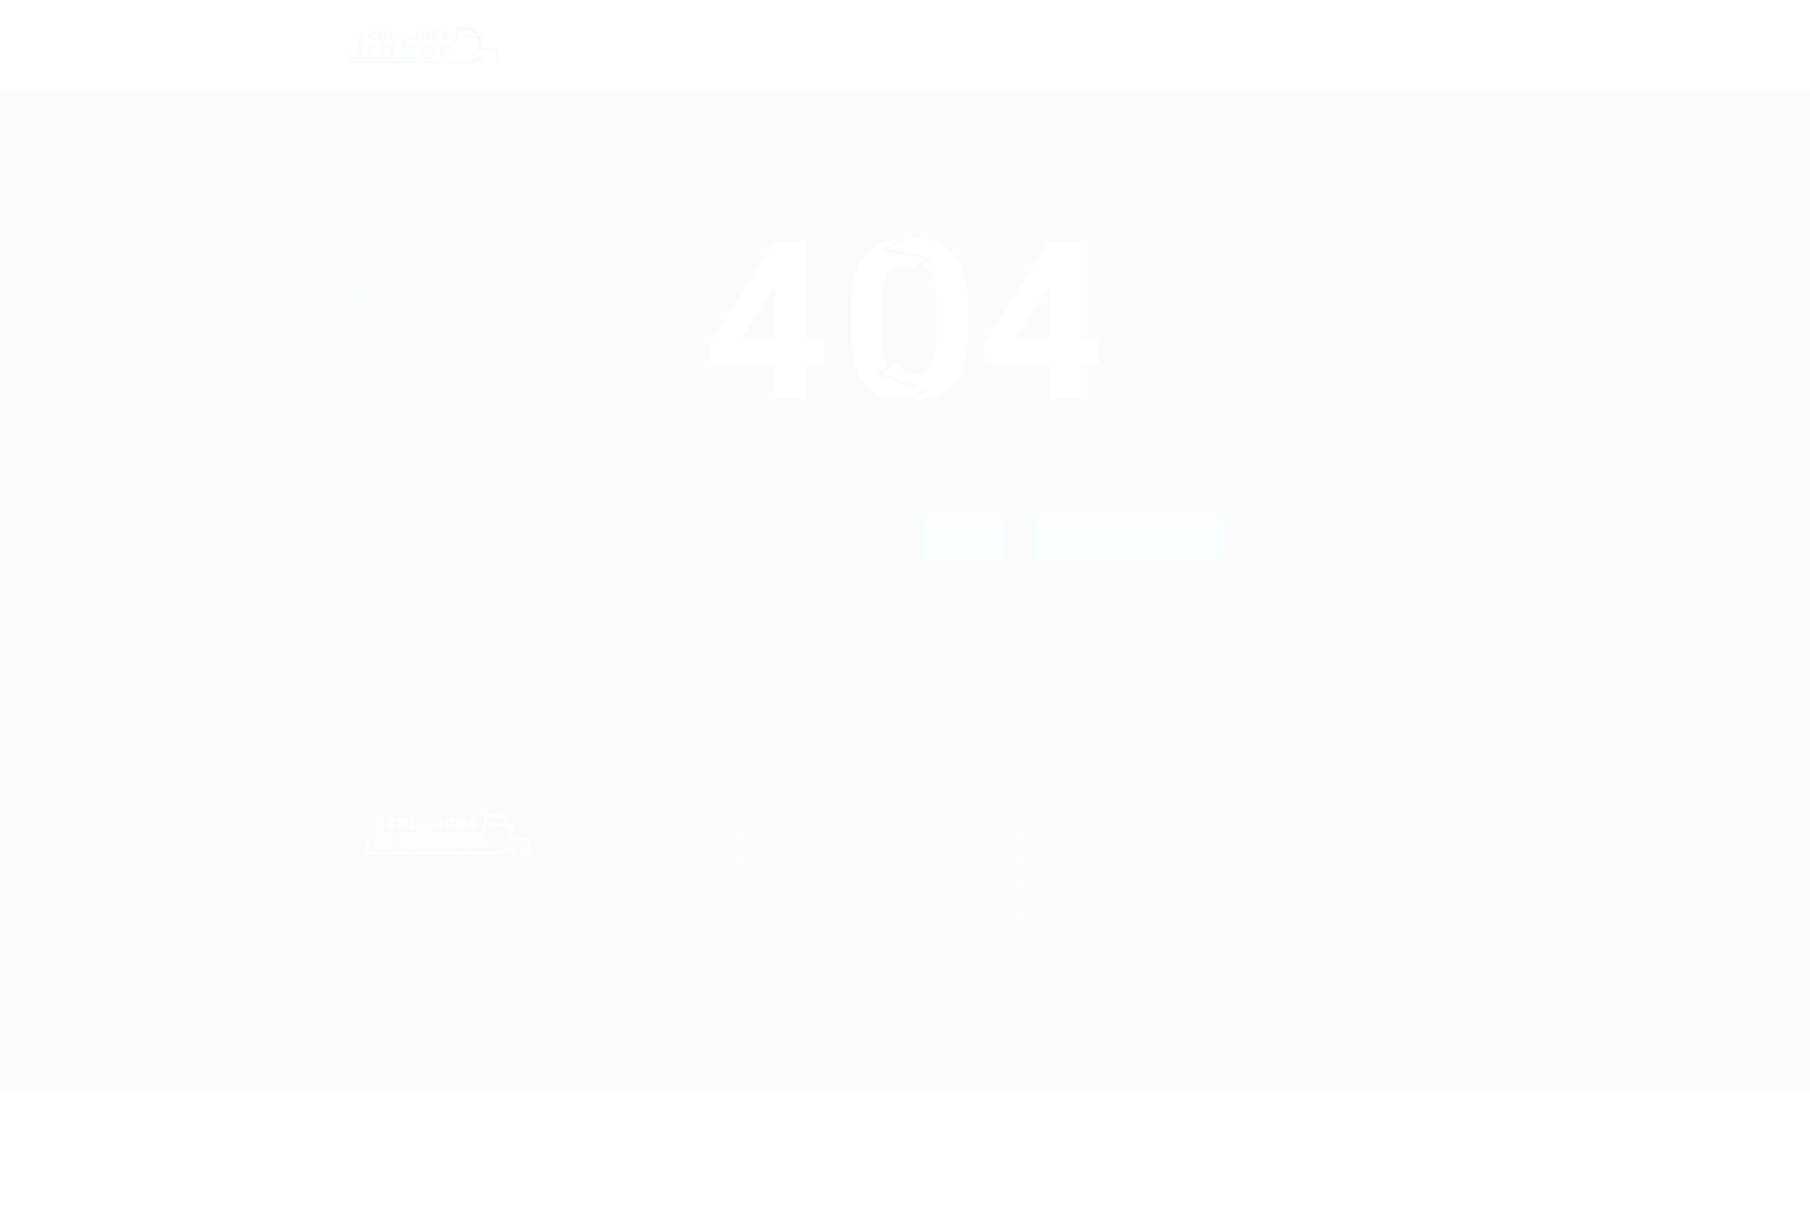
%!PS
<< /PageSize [1810 1225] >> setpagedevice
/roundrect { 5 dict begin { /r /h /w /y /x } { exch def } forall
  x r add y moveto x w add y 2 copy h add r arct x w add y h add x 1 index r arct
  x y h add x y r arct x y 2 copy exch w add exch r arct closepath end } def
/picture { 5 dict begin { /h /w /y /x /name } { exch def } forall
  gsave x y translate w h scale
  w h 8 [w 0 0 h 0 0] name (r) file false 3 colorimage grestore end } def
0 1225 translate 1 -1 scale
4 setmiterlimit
1 setgray
0 0 1810 1225 rectfill
(img1.rgb) 348 26 151 38 picture
(img2.rgb) 0 91 1810 624 picture
(img3.rgb) 710 238 389 161 picture
0.98 0.996 1 setrgbcolor
newpath 922 519 moveto 1002 519 lineto 1004 519 1006 521 1006 523 curveto 1006 555 lineto 1006 557 1004 559 1002 559 curveto 922 559 lineto closepath fill
1036 519 188 41 4 roundrect fill
0.984 setgray
0 715 1810 377 rectfill
(img4.rgb) 364 813 168 43 picture
(img5.rgb) 730 829 12 9 picture
(img5.rgb) 730 856 12 9 picture
(img5.rgb) 1015 829 12 9 picture
(img5.rgb) 1015 856 12 9 picture
(img5.rgb) 1015 883 12 9 picture
(img5.rgb) 1015 910 12 9 picture
showpage
